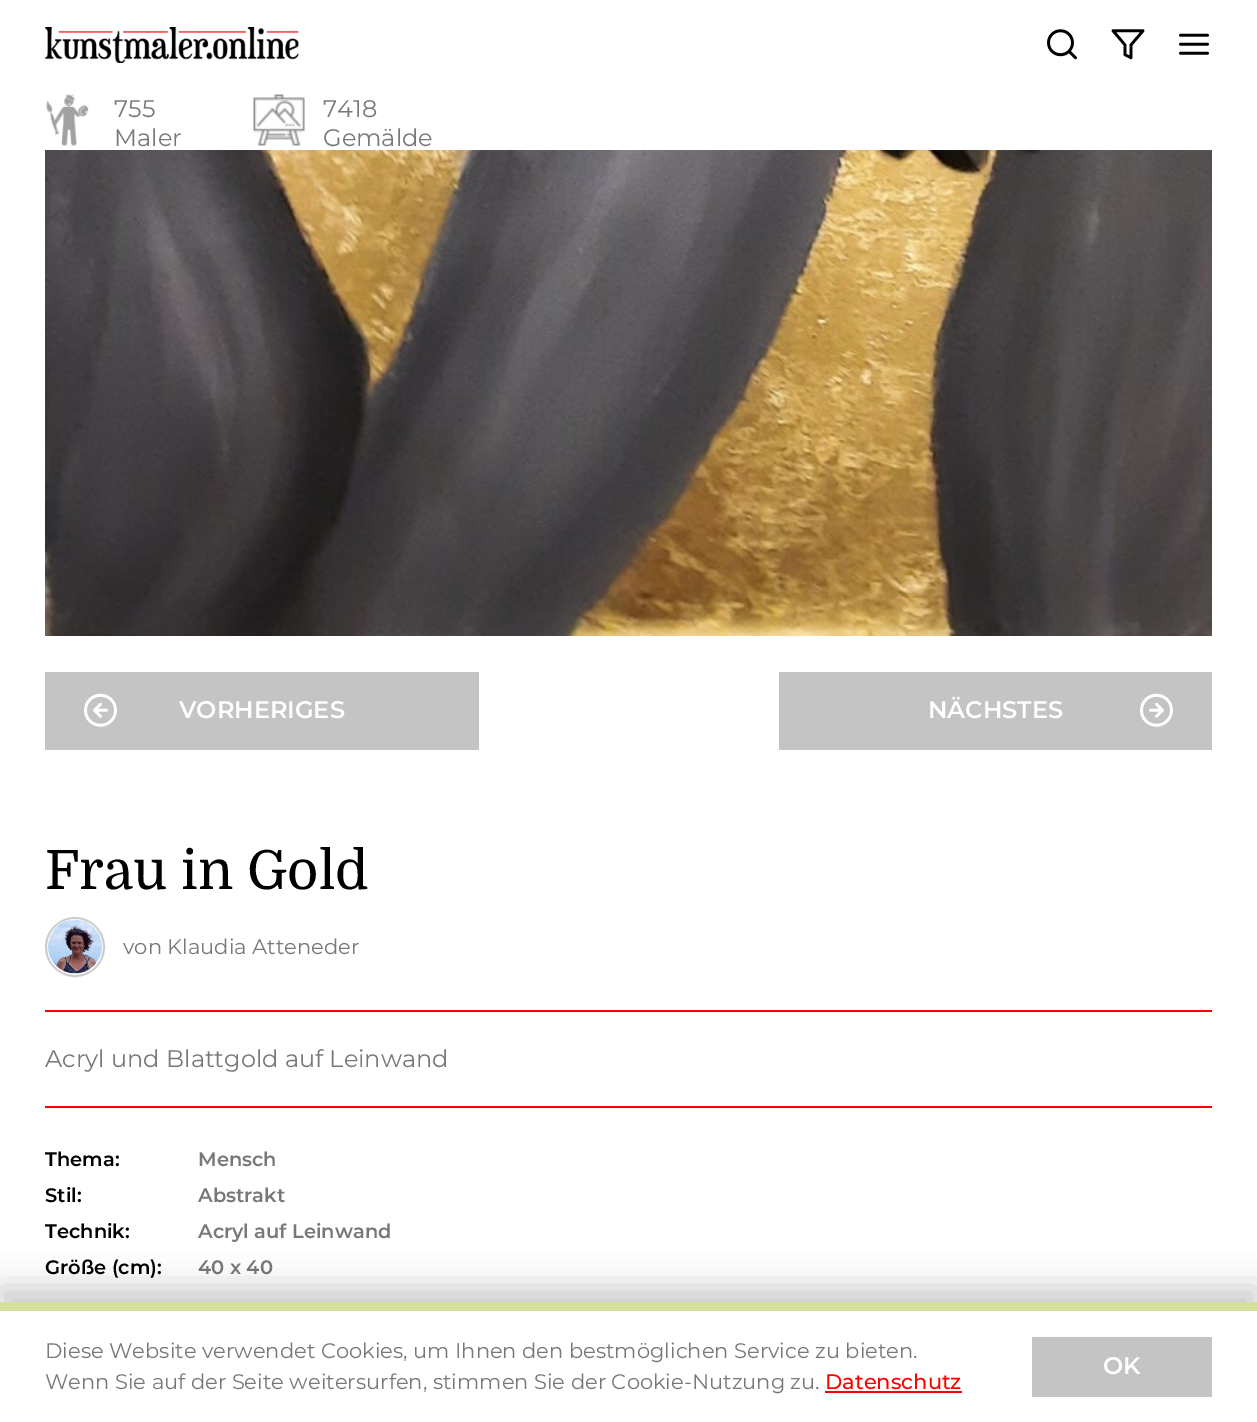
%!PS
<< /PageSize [1257 1422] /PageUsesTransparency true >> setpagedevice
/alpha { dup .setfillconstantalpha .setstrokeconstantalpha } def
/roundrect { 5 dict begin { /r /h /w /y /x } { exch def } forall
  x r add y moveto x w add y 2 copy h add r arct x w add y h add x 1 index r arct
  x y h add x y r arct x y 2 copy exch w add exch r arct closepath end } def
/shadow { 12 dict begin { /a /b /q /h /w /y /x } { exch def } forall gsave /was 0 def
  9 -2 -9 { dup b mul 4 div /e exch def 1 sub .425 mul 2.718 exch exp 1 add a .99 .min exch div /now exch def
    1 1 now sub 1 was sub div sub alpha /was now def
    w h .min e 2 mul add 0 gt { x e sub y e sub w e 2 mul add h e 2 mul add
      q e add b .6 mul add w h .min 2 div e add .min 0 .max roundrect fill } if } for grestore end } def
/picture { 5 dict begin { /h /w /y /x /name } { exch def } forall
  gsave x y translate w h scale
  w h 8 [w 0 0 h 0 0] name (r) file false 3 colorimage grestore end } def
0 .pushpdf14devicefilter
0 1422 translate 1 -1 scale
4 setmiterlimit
1 setgray
0 0 1257 1422 rectfill
(img1.rgb) 45 27 254 36 picture
(img2.rgb) 1047 29 30 31 picture
(img3.rgb) 1111 29 34 31 picture
(img4.rgb) 1179 33 30 22 picture
(img5.rgb) 46 94 43 52 picture
/Montserrat-Regular [24 0 0 -24 0 0] selectfont
0.471 setgray
114 117 moveto (755) show
114 146 moveto (Maler) show
(img6.rgb) 253 94 52 52 picture
323 117 moveto (7418) show
323 146 moveto (Gemälde) show
(img7.rgb) 45 150 1167 486 picture
0.769 setgray
45 672 434 78 rectfill
(img8.rgb) 84 693 33 34 picture
/Montserrat-SemiBold [24 0 0 -24 0 0] selectfont
1 setgray
179 718 moveto (VORHERIGES) show
0.769 setgray
779 672 433 78 rectfill
1 setgray
928 718 moveto (NÄCHSTES) show
(img9.rgb) 1140 693 33 34 picture
/Domine-Regular [54 0 0 -54 0 0] selectfont
0 setgray
45 889 moveto (Frau in Gold) show
0.8 setgray
2 setlinewidth
newpath 75 947 29 0 360 arc closepath stroke
(img10.rgb) 48 919 54 55 picture
/Montserrat-Regular [21 0 0 -21 0 0] selectfont
0.471 setgray
123 954 moveto (von Klaudia Atteneder) show
1 0 0 setrgbcolor
45 1010 1167 2 rectfill
/Montserrat-Regular [24 0 0 -24 0 0] selectfont
0.471 setgray
45 1067 moveto (Acryl und Blattgold auf Leinwand) show
1 0 0 setrgbcolor
45 1106 1167 2 rectfill
/Montserrat-SemiBold [19.5 0 0 -19.5 0 0] selectfont
0 setgray
45 1166 moveto (Thema:) show
0.471 setgray
198 1166 moveto (Mensch) show
0 setgray
45 1202 moveto (Stil:) show
0.471 setgray
198 1202 moveto (Abstrakt) show
0 setgray
45 1238 moveto (Technik:) show
0.471 setgray
198 1238 moveto (Acryl auf Leinwand) show
0 setgray
45 1274 moveto (Größe \(cm\):) show
0.471 setgray
198 1274 moveto (40 x 40) show
0 setgray
0 1287 1257 120 0 15 0.2 shadow
1 setgray
0 1311 1257 111 rectfill
0.831 0.878 0.608 setrgbcolor
0 1302 1257 9 rectfill
/Montserrat-Regular [21 0 0 -21 0 0] selectfont
0.471 setgray
45 1358 moveto (Diese Website verwendet Cookies, um Ihnen den bestmöglichen Service zu bieten.) show
45 1389 moveto (Wenn Sie auf der Seite weitersurfen, stimmen Sie der Cookie-Nutzung zu.) show
/Montserrat-Medium [21 0 0 -21 0 0] selectfont
1 0 0 setrgbcolor
825 1389 moveto (Datenschutz) show
825 1391 137 2 rectfill
0.769 setgray
1032 1337 180 60 rectfill
/Montserrat-SemiBold [24 0 0 -24 0 0] selectfont
1 setgray
1103 1374 moveto (OK) show
.poppdf14devicefilter showpage
